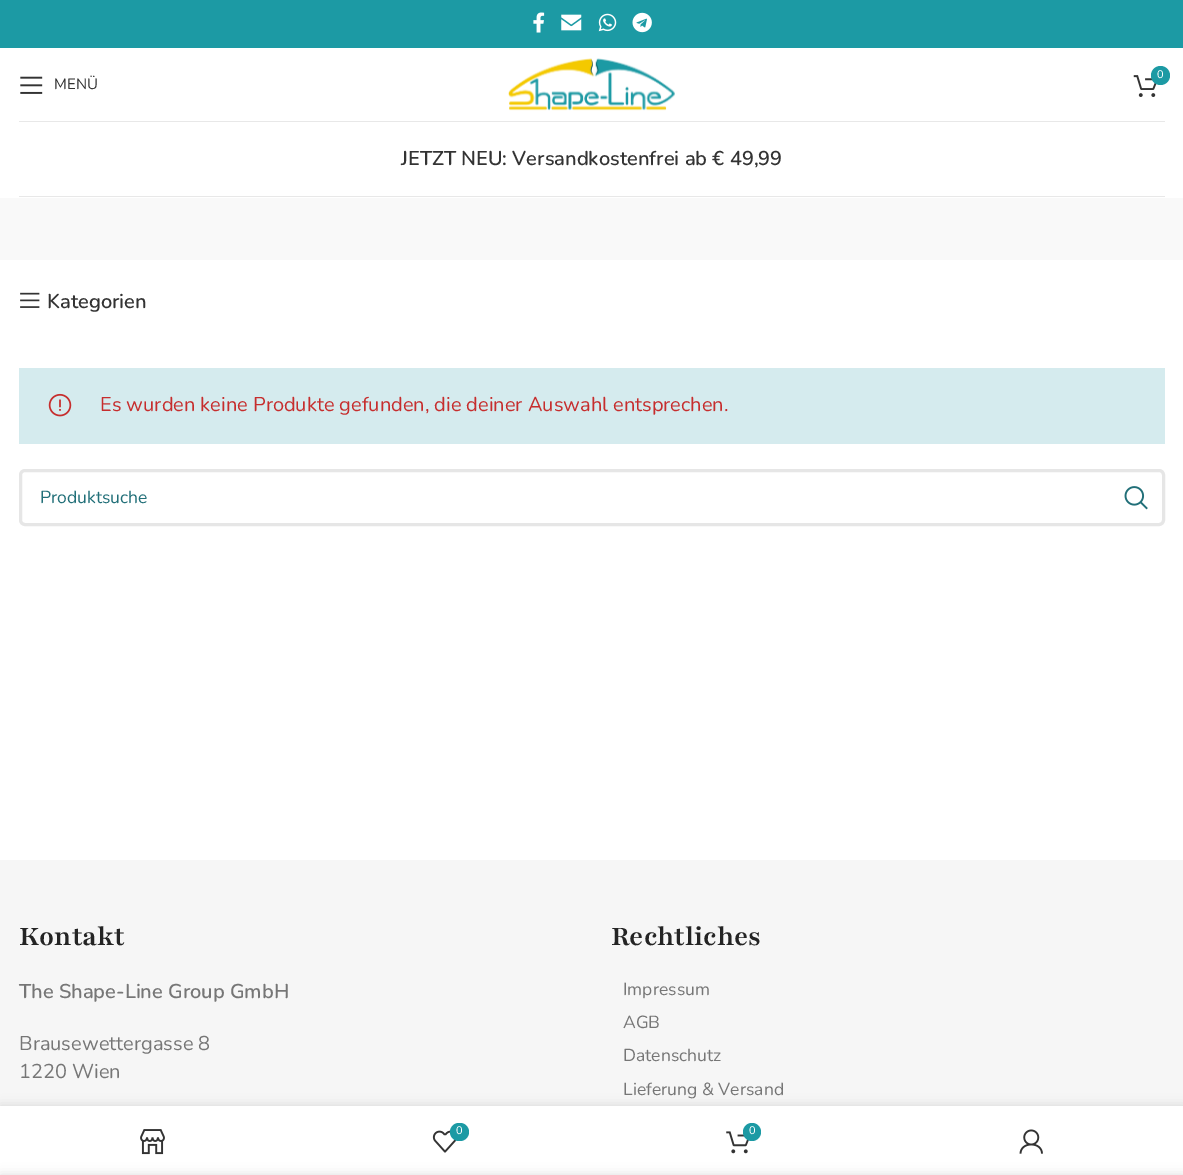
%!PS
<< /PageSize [1183 1175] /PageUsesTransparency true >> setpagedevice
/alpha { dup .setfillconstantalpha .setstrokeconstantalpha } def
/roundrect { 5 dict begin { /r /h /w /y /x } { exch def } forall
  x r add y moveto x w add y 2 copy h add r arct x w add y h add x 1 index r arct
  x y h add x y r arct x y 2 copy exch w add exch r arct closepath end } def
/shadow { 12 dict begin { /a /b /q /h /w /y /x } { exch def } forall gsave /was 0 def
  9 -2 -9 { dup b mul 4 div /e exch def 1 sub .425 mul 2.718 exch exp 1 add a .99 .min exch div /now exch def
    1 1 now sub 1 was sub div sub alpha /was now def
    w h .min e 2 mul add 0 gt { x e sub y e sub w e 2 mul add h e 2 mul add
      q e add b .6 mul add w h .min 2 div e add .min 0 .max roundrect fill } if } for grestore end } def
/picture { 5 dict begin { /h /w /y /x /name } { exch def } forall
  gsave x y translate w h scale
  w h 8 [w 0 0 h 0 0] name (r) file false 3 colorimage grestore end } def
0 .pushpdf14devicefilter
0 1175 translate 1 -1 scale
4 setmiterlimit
1 setgray
0 0 1183 1175 rectfill
0.11 0.604 0.643 setrgbcolor
0 0 1183 48 rectfill
(img1.rgb) 533 12 12 21 picture
(img2.rgb) 561 14 21 17 picture
(img3.rgb) 598 13 19 19 picture
(img4.rgb) 632 12 20 21 picture
0.91 setgray
19 121 1146 1 rectfill
(img5.rgb) 20 76 23 18 picture
/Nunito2-ExtraLight [15 0 0 -15 0 0] selectfont
0.2 setgray
54 89 moveto (MENÜ) show
(img6.rgb) 508 58 167 53 picture
(img7.rgb) 1133 75 24 22 picture
0.11 0.604 0.643 setrgbcolor
newpath 1160.5 75.5 9.5 0 360 arc closepath fill
/Nunito2-ExtraLight [11 0 0 -11 0 0] selectfont
1 setgray
1157 78 moveto (0) show
0.91 setgray
19 196 1146 1 rectfill
/Nunito-ExtraLight [20 0 0 -20 0 0] selectfont
0.2 setgray
401 165 moveto (JETZT NEU: Versandkostenfrei ab € 49,99) show
0.976 setgray
0 198 1183 62 rectfill
(img8.rgb) 20 292 20 16 picture
0.2 setgray
47 308 moveto (Kategorien) show
0.835 0.922 0.933 setrgbcolor
19 368 1146 76 rectfill
(img9.rgb) 48 393 24 24 picture
/Nunito2-ExtraLight [20 0 0 -20 0 0] selectfont
0.776 0.176 0.176 setrgbcolor
100 411 moveto (Es wurden keine Produkte gefunden, die deiner Auswahl entsprechen.) show
0.902 setgray
3 setlinewidth
20.5 470.5 1143 54 4.5 roundrect stroke
/Nunito2-ExtraLight [17.5 0 0 -17.5 0 0] selectfont
0.129 0.435 0.471 setrgbcolor
40 503 moveto (Produktsuche) show
(img10.rgb) 1124 486 24 24 picture
0.965 setgray
0 860 1183 246 rectfill
/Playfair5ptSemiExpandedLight-Light [30 0 0 -30 0 0] selectfont
0.141 setgray
19 945 moveto (Kontakt) show
/Nunito-ExtraLight [20 0 0 -20 0 0] selectfont
0.463 setgray
19 998 moveto (The Shape-Line Group GmbH) show
/Nunito2-ExtraLight [20 0 0 -20 0 0] selectfont
19 1050 moveto (Brausewettergasse 8) show
19 1078 moveto (1220 Wien) show
/Playfair5ptSemiExpandedLight-Light [30 0 0 -30 0 0] selectfont
0.141 setgray
611 945 moveto (Rechtliches) show
/Nunito2-ExtraLight [17.5 0 0 -17.5 0 0] selectfont
0.463 setgray
623 995 moveto (Impressum) show
623 1028 moveto (AGB) show
623 1061 moveto (Datenschutz) show
623 1095 moveto (Lieferung & Versand) show
0 setgray
0 1106 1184 69 0 5.5 0.12 shadow
1 setgray
0 1106 1183 69 rectfill
(img11.rgb) 140 1129 25 26 picture
(img12.rgb) 432 1130 25 23 picture
0.11 0.604 0.643 setrgbcolor
450 1123 19 18 9 roundrect fill
/Nunito2-ExtraLight [11 0 0 -11 0 0] selectfont
1 setgray
456 1134 moveto (0) show
(img13.rgb) 726 1131 23 23 picture
0.11 0.604 0.643 setrgbcolor
newpath 752 1132 9 0 360 arc closepath fill
1 setgray
749 1134 moveto (0) show
(img14.rgb) 1019 1129 24 25 picture
0 setgray
0 1175 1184 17 0 5.5 0.14 shadow
.poppdf14devicefilter showpage
